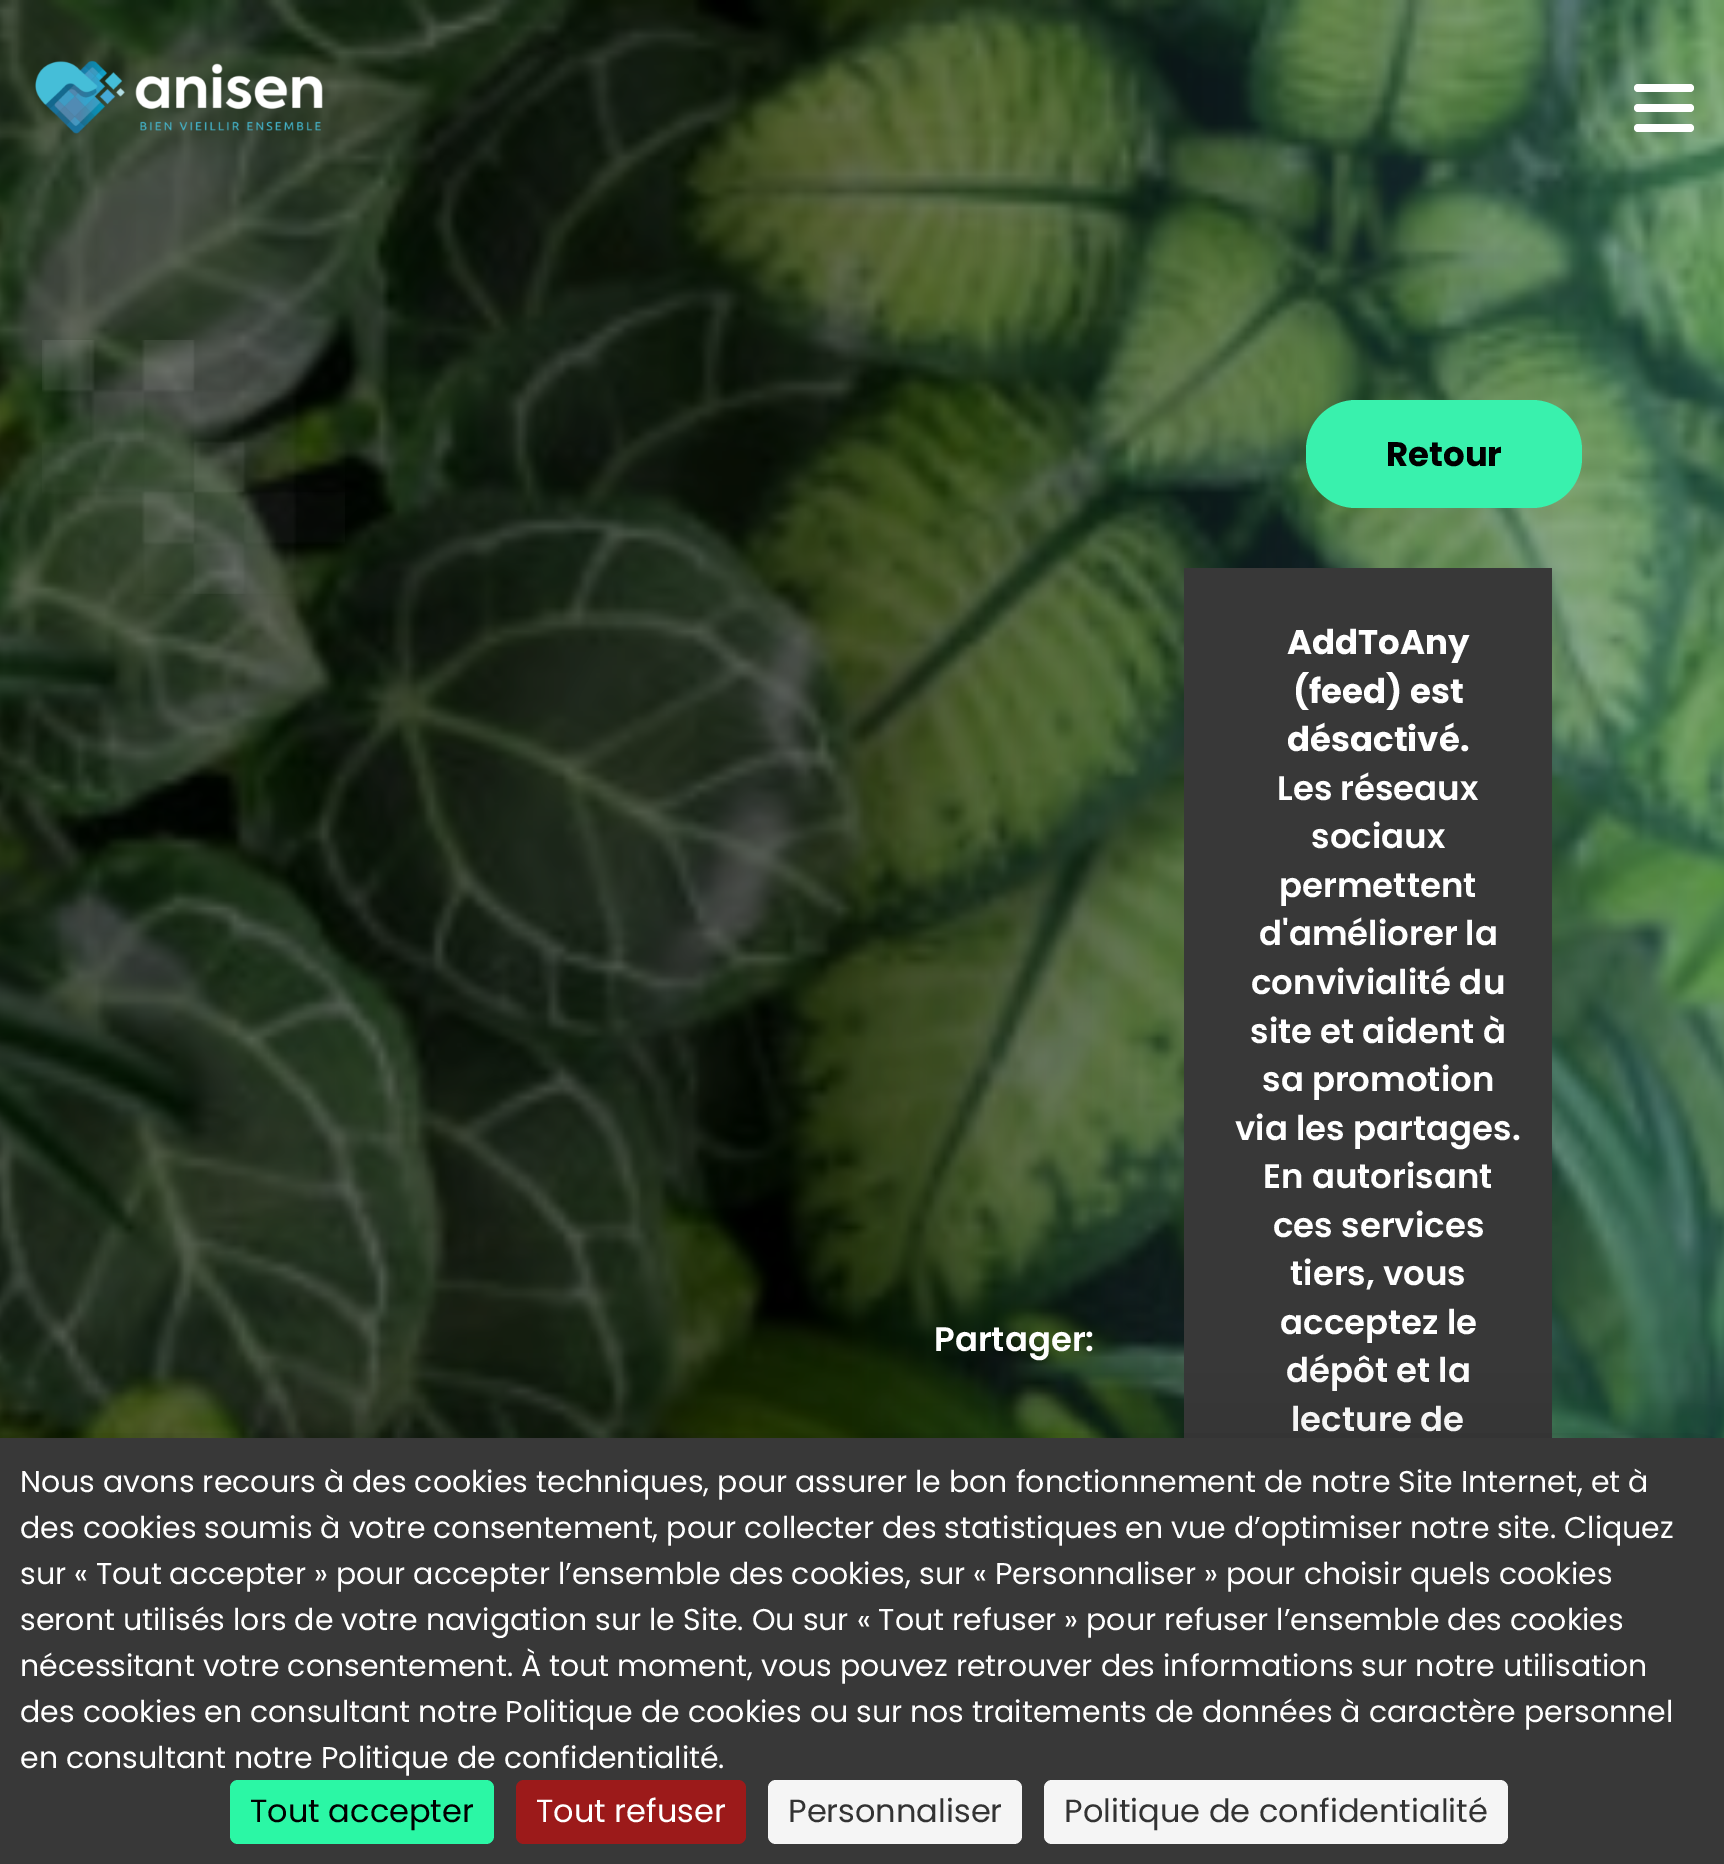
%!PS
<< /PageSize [1724 1864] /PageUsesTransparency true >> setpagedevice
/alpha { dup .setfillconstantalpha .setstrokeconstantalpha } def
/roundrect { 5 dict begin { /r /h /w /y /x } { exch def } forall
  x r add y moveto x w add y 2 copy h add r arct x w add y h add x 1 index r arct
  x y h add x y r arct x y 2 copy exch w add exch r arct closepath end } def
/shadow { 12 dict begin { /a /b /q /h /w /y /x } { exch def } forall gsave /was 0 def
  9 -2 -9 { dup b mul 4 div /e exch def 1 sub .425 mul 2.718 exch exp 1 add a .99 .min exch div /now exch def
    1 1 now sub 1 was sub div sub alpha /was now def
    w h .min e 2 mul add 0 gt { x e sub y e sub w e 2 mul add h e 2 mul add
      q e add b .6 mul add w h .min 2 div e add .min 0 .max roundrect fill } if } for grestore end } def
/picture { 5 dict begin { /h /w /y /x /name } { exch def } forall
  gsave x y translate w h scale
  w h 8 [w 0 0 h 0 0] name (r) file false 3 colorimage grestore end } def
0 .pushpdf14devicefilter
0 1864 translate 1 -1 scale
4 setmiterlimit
1 setgray
0 0 1724 1864 rectfill
(img2.rgb) 0 0 1724 1438 picture
(img1.rgb) 35 60 288 74 picture
1634 84 60 8 4 roundrect fill
1634 104 60 8 4 roundrect fill
1634 124 60 8 4 roundrect fill
(img3.rgb) 42 340 303 254 picture
0.224 0.945 0.678 setrgbcolor
1306 400 276 108 50 roundrect fill
/Poppins-Bold [34 0 0 -34 0 0] selectfont
0 setgray
1386 466 moveto (Retour) show
/Poppins-SemiBold [34 0 0 -34 0 0] selectfont
1 setgray
934 1351 moveto (Partager:) show
0.22 setgray
1184 568 368 870 rectfill
/Poppins-Bold [34 0 0 -34 0 0] selectfont
1 setgray
1287 654 moveto (AddToAny) show
1293 703 moveto (\(feed\) est) show
1287 751 moveto (désactivé.) show
/Poppins-SemiBold [34 0 0 -34 0 0] selectfont
1277 800 moveto (Les réseaux) show
1311 848 moveto (sociaux) show
1279 897 moveto (permettent) show
1259 945 moveto (d'améliorer la) show
1251 994 moveto (convivialité du) show
1250 1043 moveto (site et aident à) show
1262 1091 moveto (sa promotion) show
1235 1140 moveto (via les partages.) show
1263 1188 moveto (En autorisant) show
1273 1237 moveto (ces services) show
1290 1285 moveto (tiers, vous) show
1280 1334 moveto (acceptez le) show
1286 1382 moveto (dépôt et la) show
1291 1431 moveto (lecture de) show
0 setgray
0 1478 1724 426 0 60 0.25 shadow
0.22 setgray
0 1438 1724 426 rectfill
/Poppins-Regular [30 0 0 -30 0 0] selectfont
1 setgray
20 1492 moveto (Nous avons recours à des cookies techniques, pour assurer le bon fonctionnement de notre Site Internet, et à) show
20 1538 moveto (des cookies soumis à votre consentement, pour collecter des statistiques en vue d’optimiser notre site. Cliquez) show
20 1584 moveto (sur « Tout accepter » pour accepter l’ensemble des cookies, sur « Personnaliser » pour choisir quels cookies) show
20 1630 moveto (seront utilisés lors de votre navigation sur le Site. Ou sur « Tout refuser » pour refuser l’ensemble des cookies) show
20 1676 moveto (nécessitant votre consentement. À tout moment, vous pouvez retrouver des informations sur notre utilisation) show
20 1722 moveto (des cookies en consultant notre Politique de cookies ou sur nos traitements de données à caractère personnel) show
20 1768 moveto (en consultant notre Politique de confidentialité.) show
0.169 0.969 0.647 setrgbcolor
230 1780 264 64 8 roundrect fill
/Poppins-Regular [32 0 0 -32 0 0] selectfont
0 setgray
250 1822 moveto (Tout accepter) show
0.612 0.102 0.102 setrgbcolor
516 1780 230 64 8 roundrect fill
1 setgray
536 1822 moveto (Tout refuser) show
0.961 setgray
768 1780 254 64 8 roundrect fill
0.2 setgray
788 1822 moveto (Personnaliser) show
0.961 setgray
1044 1780 464 64 8 roundrect fill
0.2 setgray
1064 1822 moveto (Politique de confidentialité) show
.poppdf14devicefilter showpage
